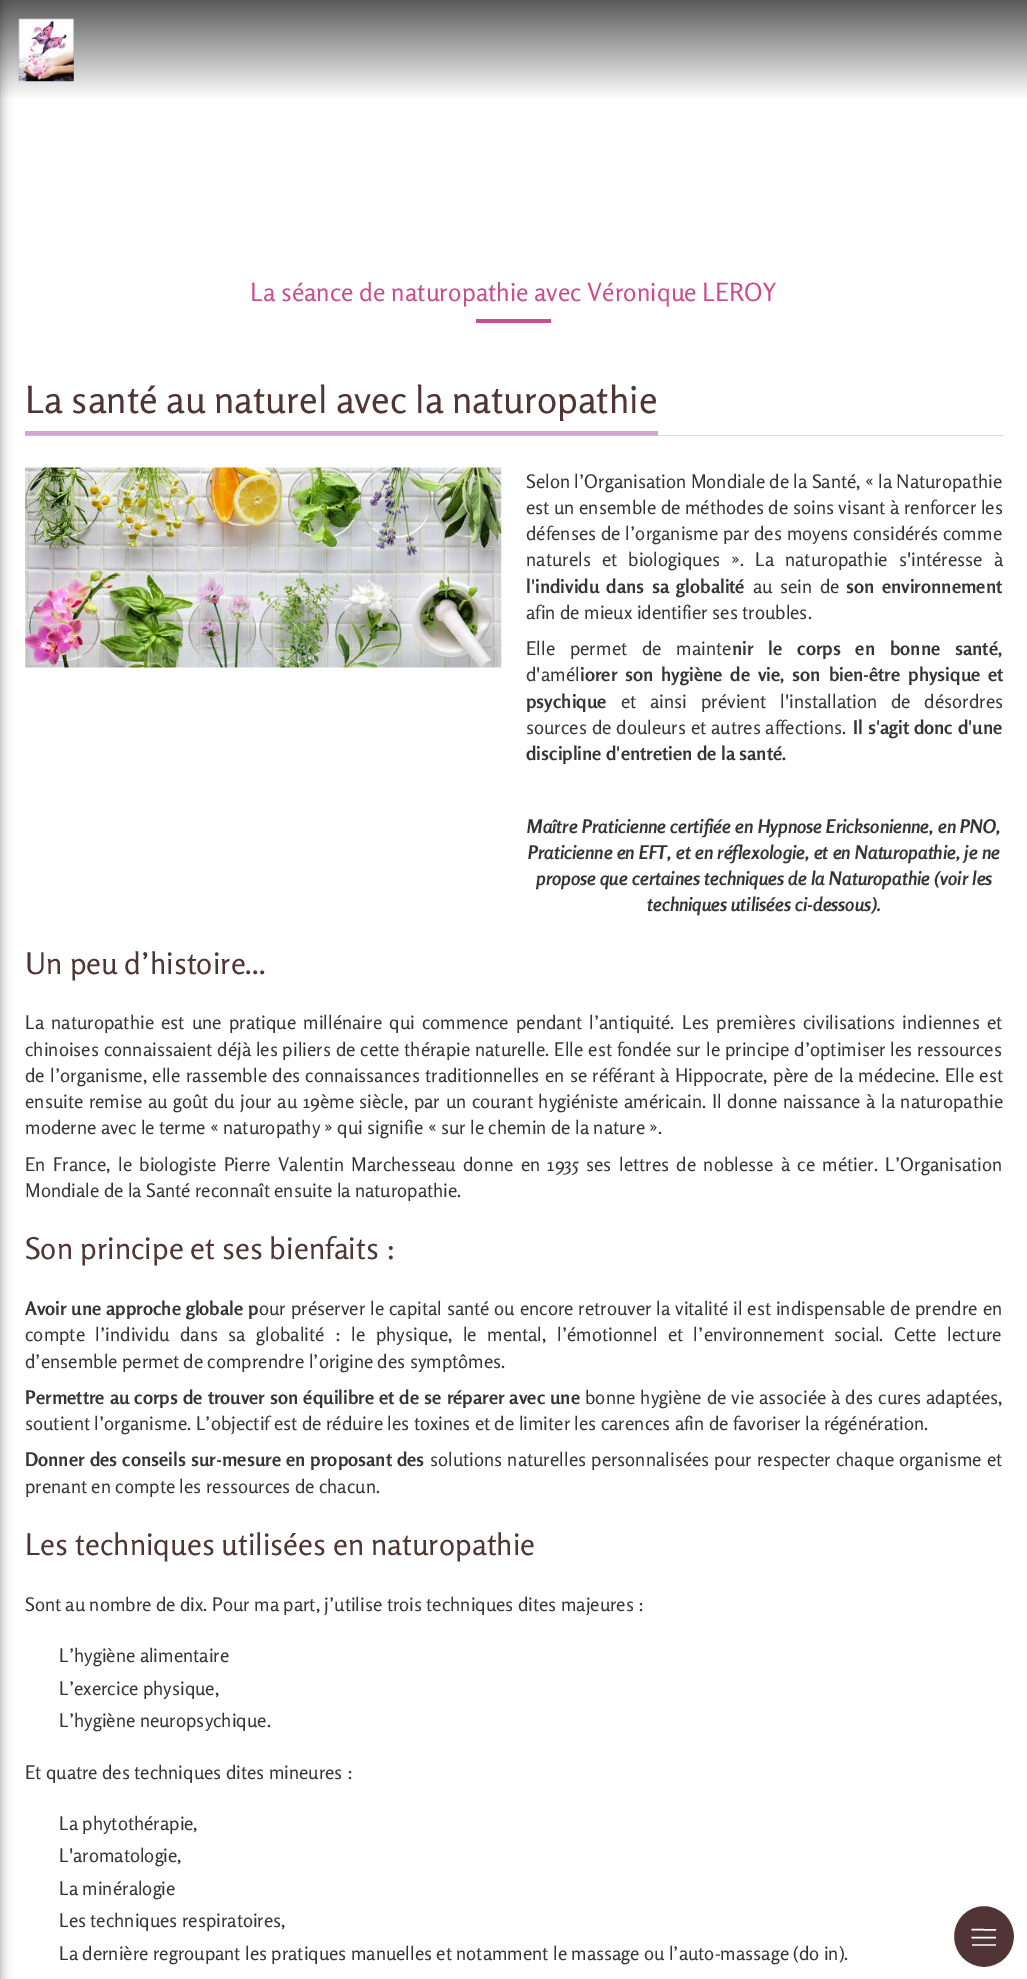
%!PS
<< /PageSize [1027 1979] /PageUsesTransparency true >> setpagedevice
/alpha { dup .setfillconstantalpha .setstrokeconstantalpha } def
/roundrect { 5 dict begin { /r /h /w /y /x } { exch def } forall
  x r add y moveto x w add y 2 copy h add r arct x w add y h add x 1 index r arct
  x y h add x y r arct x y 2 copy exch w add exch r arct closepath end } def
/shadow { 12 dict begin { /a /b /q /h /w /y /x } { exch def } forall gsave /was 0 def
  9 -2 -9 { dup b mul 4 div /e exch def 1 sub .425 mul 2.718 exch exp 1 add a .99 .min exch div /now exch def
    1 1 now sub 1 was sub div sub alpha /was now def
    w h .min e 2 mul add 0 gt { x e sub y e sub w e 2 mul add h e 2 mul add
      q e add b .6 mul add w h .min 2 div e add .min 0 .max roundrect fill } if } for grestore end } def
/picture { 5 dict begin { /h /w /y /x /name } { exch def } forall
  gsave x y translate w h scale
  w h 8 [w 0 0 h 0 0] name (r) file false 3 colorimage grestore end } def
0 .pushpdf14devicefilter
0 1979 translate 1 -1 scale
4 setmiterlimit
1 setgray
0 0 1027 1979 rectfill
0.871 setgray
658 435 345 1 rectfill
gsave newpath 0 0 moveto 1027 0 lineto 1027 98 lineto 0 98 lineto closepath clip newpath
<< /ShadingType 2 /ColorSpace /DeviceRGB /Coords [514 0 514 100] /Extend [true true] /Function << /FunctionType 2 /Domain [0 1] /C0 [0.349 0.349 0.349] /C1 [1 1 1] /N 1 >> >> shfill grestore
(img1.rgb) 18 18 56 64 picture
0 setgray
-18 0 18 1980 0 6 0.4 shadow
/Rosario-Regular [25 0 0 -25 0 0] selectfont
0.792 0.306 0.561 setrgbcolor
250 301 moveto (La séance de naturopathie avec Véronique LEROY) show
476 319 75 4 rectfill
0.831 0.643 0.831 setrgbcolor
25 431 633 4 rectfill
0.804 0.729 0.804 setrgbcolor
25 435 633 1 rectfill
/Rosario-Regular [37.5 0 0 -37.5 0 0] selectfont
0.318 0.204 0.208 setrgbcolor
25 413 moveto (La santé au naturel avec la naturopathie) show
(img2.rgb) 25 467 477 201 picture
/Rosario-Regular [18.75 0 0 -18.75 0 0] selectfont
0.208 setgray
526 488 moveto (Selon l’Organisation Mondiale de la Santé, « la Naturopathie) show
526 514 moveto 0.25 0 32 (est un ensemble de méthodes de soins visant à renforcer les) widthshow
526 540 moveto 0.5 0 32 (défenses de l’organisme par des moyens considérés comme) widthshow
526 566 moveto 6.75 0 32 (naturels et biologiques ». La naturopathie s'intéresse à) widthshow
/Rosario-Bold [18.75 0 0 -18.75 0 0] selectfont
526 593 moveto 3 0 32 (l'individu dans sa globalité) widthshow
/Rosario-Regular [18.75 0 0 -18.75 0 0] selectfont
753 593 moveto 3 0 32 (au sein de) widthshow
/Rosario-Bold [18.75 0 0 -18.75 0 0] selectfont
846 593 moveto 3 0 32 (son environnement) widthshow
/Rosario-Regular [18.75 0 0 -18.75 0 0] selectfont
526 619 moveto (afin de mieux identifier ses troubles.) show
526 655 moveto 10.5 0 32 (Elle permet de mainte) widthshow
/Rosario-Bold [18.75 0 0 -18.75 0 0] selectfont
732 655 moveto 10.5 0 32 (nir le corps en bonne santé,) widthshow
/Rosario-Regular [18.75 0 0 -18.75 0 0] selectfont
526 681 moveto (d'amél) show
/Rosario-Bold [18.75 0 0 -18.75 0 0] selectfont
580 681 moveto 3.5 0 32 (iorer son hygiène de vie, son bien-être physique et) widthshow
526 708 moveto (psychique) show
/Rosario-Regular [18.75 0 0 -18.75 0 0] selectfont
621 708 moveto 9.5 0 32 (et ainsi prévient l'installation de désordres) widthshow
526 734 moveto 0.5 0 32 (sources de douleurs et autres affections.) widthshow
/Rosario-Bold [18.75 0 0 -18.75 0 0] selectfont
853 734 moveto 0.5 0 32 (Il s'agit donc d'une) widthshow
526 760 moveto (discipline d'entretien de la santé.) show
/Rosario-BoldItalic [18.75 0 0 -18.75 0 0] selectfont
527 833 moveto (Maître Praticienne certifiée en Hypnose Ericksonienne, en PNO,) show
528 859 moveto (Praticienne en EFT, et en réflexologie, et en Naturopathie, je ne) show
536 885 moveto (propose que certaines techniques de la Naturopathie \(voir les) show
647 911 moveto (techniques utilisées ci-dessous\).) show
/Rosario-Regular [30 0 0 -30 0 0] selectfont
0.318 0.204 0.208 setrgbcolor
25 974 moveto (Un peu d’histoire...) show
/Rosario-Regular [18.75 0 0 -18.75 0 0] selectfont
0.208 setgray
25 1029 moveto 2.9 0 32 (La naturopathie est une pratique millénaire qui commence pendant l’antiquité. Les premières civilisations indiennes et) widthshow
25 1056 moveto 0.5 0 32 (chinoises connaissaient déjà les piliers de cette thérapie naturelle. Elle est fondée sur le principe d’optimiser les ressources) widthshow
25 1082 moveto 1 0 32 (de l’organisme, elle rassemble des connaissances traditionnelles en se référant à Hippocrate, père de la médecine. Elle est) widthshow
25 1108 moveto 1.25 0 32 (ensuite remise au goût du jour au 19ème siècle, par un courant hygiéniste américain. Il donne naissance à la naturopathie) widthshow
25 1134 moveto (moderne avec le terme « naturopathy » qui signifie « sur le chemin de la nature ».) show
25 1171 moveto 3 0 32 (En France, le biologiste Pierre Valentin Marchesseau donne en 1935 ses lettres de noblesse à ce métier. L’Organisation) widthshow
25 1197 moveto (Mondiale de la Santé reconnaît ensuite la naturopathie.) show
/Rosario-Regular [30 0 0 -30 0 0] selectfont
0.318 0.204 0.208 setrgbcolor
25 1259 moveto (Son principe et ses bienfaits :) show
/Rosario-Bold [18.75 0 0 -18.75 0 0] selectfont
0.208 setgray
25 1315 moveto 0.5 0 32 (Avoir une approche globale p) widthshow
/Rosario-Regular [18.75 0 0 -18.75 0 0] selectfont
259 1315 moveto 0.5 0 32 (our préserver le capital santé ou encore retrouver la vitalité il est indispensable de prendre en) widthshow
25 1341 moveto 6.1 0 32 (compte l’individu dans sa globalité : le physique, le mental, l’émotionnel et l’environnement social. Cette lecture) widthshow
25 1368 moveto (d’ensemble permet de comprendre l’origine des symptômes.) show
/Rosario-Bold [18.75 0 0 -18.75 0 0] selectfont
25 1404 moveto 0.75 0 32 (Permettre au corps de trouver son équilibre et de se réparer avec une) widthshow
/Rosario-Regular [18.75 0 0 -18.75 0 0] selectfont
585 1404 moveto 0.75 0 32 (bonne hygiène de vie associée à des cures adaptées,) widthshow
25 1430 moveto (soutient l’organisme. L’objectif est de réduire les toxines et de limiter les carences afin de favoriser la régénération.) show
/Rosario-Bold [18.75 0 0 -18.75 0 0] selectfont
25 1466 moveto 0.75 0 32 (Donner des conseils sur-mesure en proposant des) widthshow
/Rosario-Regular [18.75 0 0 -18.75 0 0] selectfont
430 1466 moveto 0.75 0 32 (solutions naturelles personnalisées pour respecter chaque organisme et) widthshow
25 1493 moveto (prenant en compte les ressources de chacun.) show
/Rosario-Regular [30 0 0 -30 0 0] selectfont
0.318 0.204 0.208 setrgbcolor
25 1555 moveto (Les techniques utilisées en naturopathie) show
/Rosario-Regular [18.75 0 0 -18.75 0 0] selectfont
0.208 setgray
25 1611 moveto (Sont au nombre de dix. Pour ma part, j’utilise trois techniques dites majeures :) show
59 1662 moveto (L’hygiène alimentaire) show
59 1695 moveto (L’exercice physique,) show
59 1727 moveto (L’hygiène neuropsychique.) show
25 1779 moveto (Et quatre des techniques dites mineures :) show
59 1830 moveto (La phytothérapie,) show
59 1862 moveto (L'aromatologie,) show
59 1895 moveto (La minéralogie) show
59 1927 moveto (Les techniques respiratoires,) show
59 1960 moveto (La dernière regroupant les pratiques manuelles et notamment le massage ou l’auto-massage \(do in\).) show
0.318 0.204 0.208 setrgbcolor
953.5 1905.5 61 62 30.5 roundrect gsave fill grestore
1 setgray
stroke
1.5 setlinewidth
newpath 971.5 1937.5 moveto 996 1937.5 lineto 971.5 1929.5 moveto 996 1930 lineto stroke
0.831 0.8 0.804 setrgbcolor
972 1944 24 2 rectfill
.poppdf14devicefilter showpage
